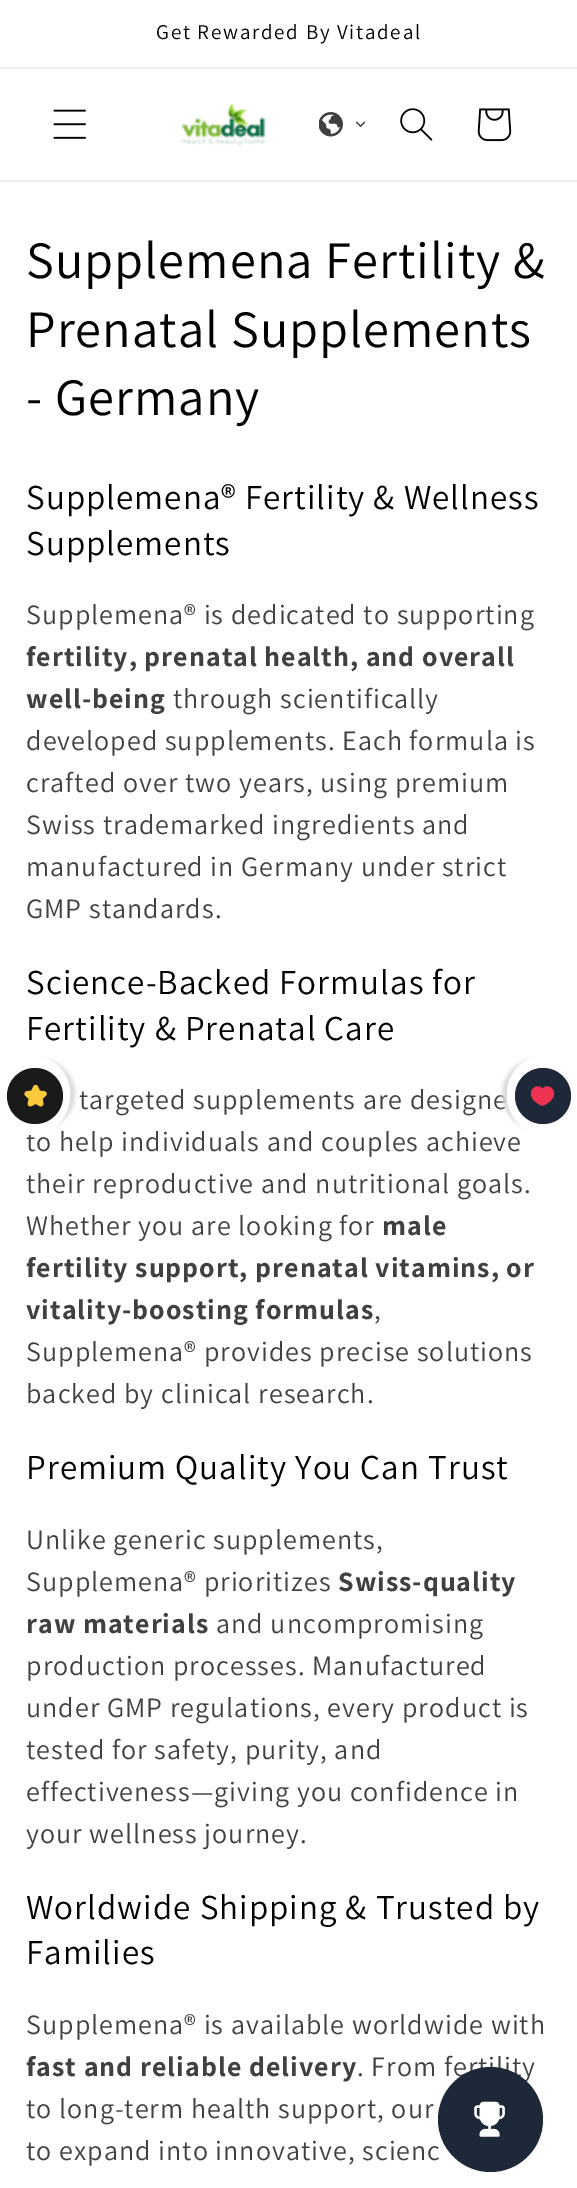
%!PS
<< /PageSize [577 2188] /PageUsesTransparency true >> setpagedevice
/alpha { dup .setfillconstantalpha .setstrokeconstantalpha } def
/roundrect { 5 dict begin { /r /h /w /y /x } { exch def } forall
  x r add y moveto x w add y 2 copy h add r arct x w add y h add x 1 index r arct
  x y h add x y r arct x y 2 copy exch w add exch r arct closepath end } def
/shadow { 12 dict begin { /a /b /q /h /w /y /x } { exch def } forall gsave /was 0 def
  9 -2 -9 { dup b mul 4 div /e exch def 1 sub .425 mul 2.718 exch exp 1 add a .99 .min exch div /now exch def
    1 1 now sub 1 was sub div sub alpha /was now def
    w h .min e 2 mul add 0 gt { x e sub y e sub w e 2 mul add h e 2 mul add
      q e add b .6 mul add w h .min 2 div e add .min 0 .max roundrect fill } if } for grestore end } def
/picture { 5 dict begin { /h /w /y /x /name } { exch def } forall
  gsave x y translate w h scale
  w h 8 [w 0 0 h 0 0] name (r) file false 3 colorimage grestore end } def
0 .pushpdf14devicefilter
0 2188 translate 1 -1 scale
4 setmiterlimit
1 setgray
0 0 577 2188 rectfill
0.922 setgray
0 67 577 2 rectfill
/Assistant-Regular [21 0 0 -21 0 0] selectfont
0 setgray
156 39 moveto 1.75 0 (Get Rewarded By Vitadeal) ashow
0.922 setgray
0 180 577 2 rectfill
(img1.rgb) 53 109 33 30 picture
(img2.rgb) 181 103 85 43 picture
(img3.rgb) 319 112 24 25 picture
(img4.rgb) 355 121 11 6 picture
(img5.rgb) 400 108 33 33 picture
(img6.rgb) 477 108 35 34 picture
/Assistant-Regular [52.5 0 0 -52.5 0 0] selectfont
0 setgray
26 278 moveto 1.05 0 (Supplemena Fertility &) ashow
26 347 moveto 1.05 0 (Prenatal Supplements) ashow
26 415 moveto 1.05 0 (- Germany) ashow
/Assistant-Regular [35 0 0 -35 0 0] selectfont
26 509 moveto 1.05 0 (Supplemena® Fertility & Wellness) ashow
26 555 moveto 1.05 0 (Supplements) ashow
/Assistant-Regular [28 0 0 -28 0 0] selectfont
0.251 setgray
26 624 moveto 1.05 0 (Supplemena® is dedicated to supporting) ashow
/Assistant-Bold [28 0 0 -28 0 0] selectfont
26 666 moveto 1.05 0 (fertility, prenatal health, and overall) ashow
26 708 moveto 1.05 0 (well-being) ashow
/Assistant-Regular [28 0 0 -28 0 0] selectfont
173 708 moveto 1.05 0 (through scientifically) ashow
26 750 moveto 1.05 0 (developed supplements. Each formula is) ashow
26 792 moveto 1.05 0 (crafted over two years, using premium) ashow
26 834 moveto 1.05 0 (Swiss trademarked ingredients and) ashow
26 876 moveto 1.05 0 (manufactured in Germany under strict) ashow
26 918 moveto 1.05 0 (GMP standards.) ashow
/Assistant-Regular [35 0 0 -35 0 0] selectfont
0 setgray
26 994 moveto 1.05 0 (Science-Backed Formulas for) ashow
26 1040 moveto 1.05 0 (Fertility & Prenatal Care) ashow
/Assistant-Regular [28 0 0 -28 0 0] selectfont
0.251 setgray
79 1109 moveto 1.05 0 (targeted supplements are designe) ashow
26 1151 moveto 1.05 0 (to help individuals and couples achieve) ashow
26 1193 moveto 1.05 0 (their reproductive and nutritional goals.) ashow
26 1235 moveto 1.05 0 (Whether you are looking for) ashow
/Assistant-Bold [28 0 0 -28 0 0] selectfont
382 1235 moveto 1.05 0 (male) ashow
26 1277 moveto 1.05 0 (fertility support, prenatal vitamins, or) ashow
26 1319 moveto 1.05 0 (vitality-boosting formulas) ashow
/Assistant-Regular [28 0 0 -28 0 0] selectfont
374 1319 moveto 1.05 0 (,) ashow
26 1361 moveto 1.05 0 (Supplemena® provides precise solutions) ashow
26 1403 moveto 1.05 0 (backed by clinical research.) ashow
/Assistant-Regular [35 0 0 -35 0 0] selectfont
0 setgray
26 1479 moveto 1.05 0 (Premium Quality You Can Trust) ashow
/Assistant-Regular [28 0 0 -28 0 0] selectfont
0.251 setgray
26 1549 moveto 1.05 0 (Unlike generic supplements,) ashow
26 1591 moveto 1.05 0 (Supplemena® prioritizes) ashow
/Assistant-Bold [28 0 0 -28 0 0] selectfont
338 1591 moveto 1.05 0 (Swiss-quality) ashow
26 1633 moveto 1.05 0 (raw materials) ashow
/Assistant-Regular [28 0 0 -28 0 0] selectfont
216 1633 moveto 1.05 0 (and uncompromising) ashow
26 1675 moveto 1.05 0 (production processes. Manufactured) ashow
26 1717 moveto 1.05 0 (under GMP regulations, every product is) ashow
26 1759 moveto 1.05 0 (tested for safety, purity, and) ashow
26 1801 moveto 1.05 0 (effectiveness—giving you confidence in) ashow
26 1843 moveto 1.05 0 (your wellness journey.) ashow
/Assistant-Regular [35 0 0 -35 0 0] selectfont
0 setgray
26 1919 moveto 1.05 0 (Worldwide Shipping & Trusted by) ashow
26 1964 moveto 1.05 0 (Families) ashow
/Assistant-Regular [28 0 0 -28 0 0] selectfont
0.251 setgray
26 2034 moveto 1.05 0 (Supplemena® is available worldwide with) ashow
/Assistant-Bold [28 0 0 -28 0 0] selectfont
26 2076 moveto 1.05 0 (fast and reliable delivery) ashow
/Assistant-Regular [28 0 0 -28 0 0] selectfont
357 2076 moveto 1.05 0 (. From fertility) ashow
26 2118 moveto 1.05 0 (to long-term health support, our) ashow
26 2160 moveto 1.05 0 (to expand into innovative, scienc) ashow
0.855 setgray
-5 1059 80 70 39 2 1 shadow
1 setgray
newpath 0 1135 moveto 0 1055 lineto 13 1055 35 1053 46 1058 curveto 85 1074 74 1135 32 1135 curveto closepath fill
0.102 setgray
newpath 35 1096 28 0 360 arc closepath fill
(img7.rgb) 24 1084 23 23 picture
0.855 setgray
502 1059 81 70 39 2 1 shadow
1 setgray
newpath 507 1096 moveto 507 1093 lineto 507 1072 525 1055 546 1055 curveto 577 1055 lineto 577 1135 lineto 546 1135 lineto 525 1135 507 1117 507 1096 curveto closepath fill
0.114 0.161 0.224 setrgbcolor
newpath 543 1096 28 0 360 arc closepath fill
0.937 0.196 0.318 setrgbcolor
newpath 542.5 1088.5 moveto 535.5 1081.5 524 1093.5 536.5 1102.5 curveto 538 1103.5 540.5 1105.5 542.5 1105.5 curveto 544.5 1105.5 547 1103.5 548.5 1102.5 curveto 561 1093.5 549.5 1081.5 542.5 1088.5 curveto closepath fill
0.114 0.161 0.224 setrgbcolor
newpath 490.5 2119.5 52.5 0 360 arc closepath fill
(img8.rgb) 474 2101 31 36 picture
.poppdf14devicefilter showpage
